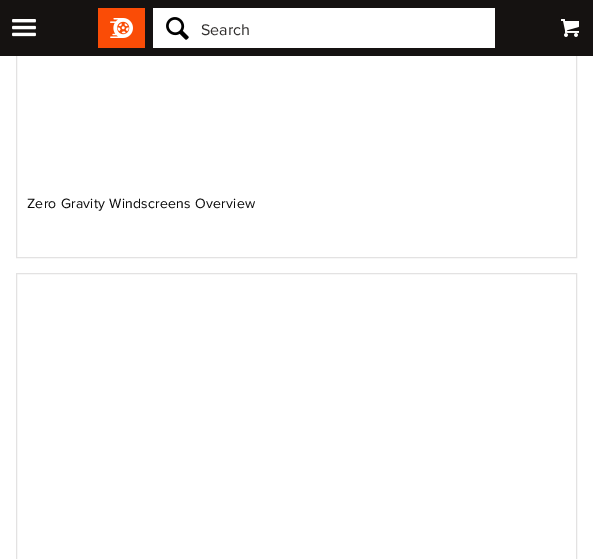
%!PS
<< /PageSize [593 559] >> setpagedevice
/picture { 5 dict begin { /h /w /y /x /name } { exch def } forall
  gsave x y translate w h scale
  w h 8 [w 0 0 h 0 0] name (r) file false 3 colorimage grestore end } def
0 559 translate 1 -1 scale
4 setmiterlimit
1 setgray
0 0 593 559 rectfill
0.89 0.886 0.886 setrgbcolor
16.5 -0.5 560 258 rectstroke
0.082 0.071 0.067 setrgbcolor
0 0 593 56 rectfill
(img1.rgb) 12 19 24 18 picture
0.98 0.298 0.024 setrgbcolor
98 8 47 40 rectfill
(img2.rgb) 110 18 23 20 picture
1 setgray
153 8 342 40 rectfill
(img3.rgb) 166 17 23 23 picture
/ProximaNova-Regular [16 0 0 -16 0 0] selectfont
0.192 0.184 0.18 setrgbcolor
201 35 moveto (Search) show
(img4.rgb) 561 19 18 18 picture
/ProximaNova-Regular [14 0 0 -14 0 0] selectfont
0.039 setgray
27 208 moveto 0.25 0 (Zero Gravity Windscreens Overview) ashow
0.89 0.886 0.886 setrgbcolor
16.5 273.5 560 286 rectstroke
showpage
